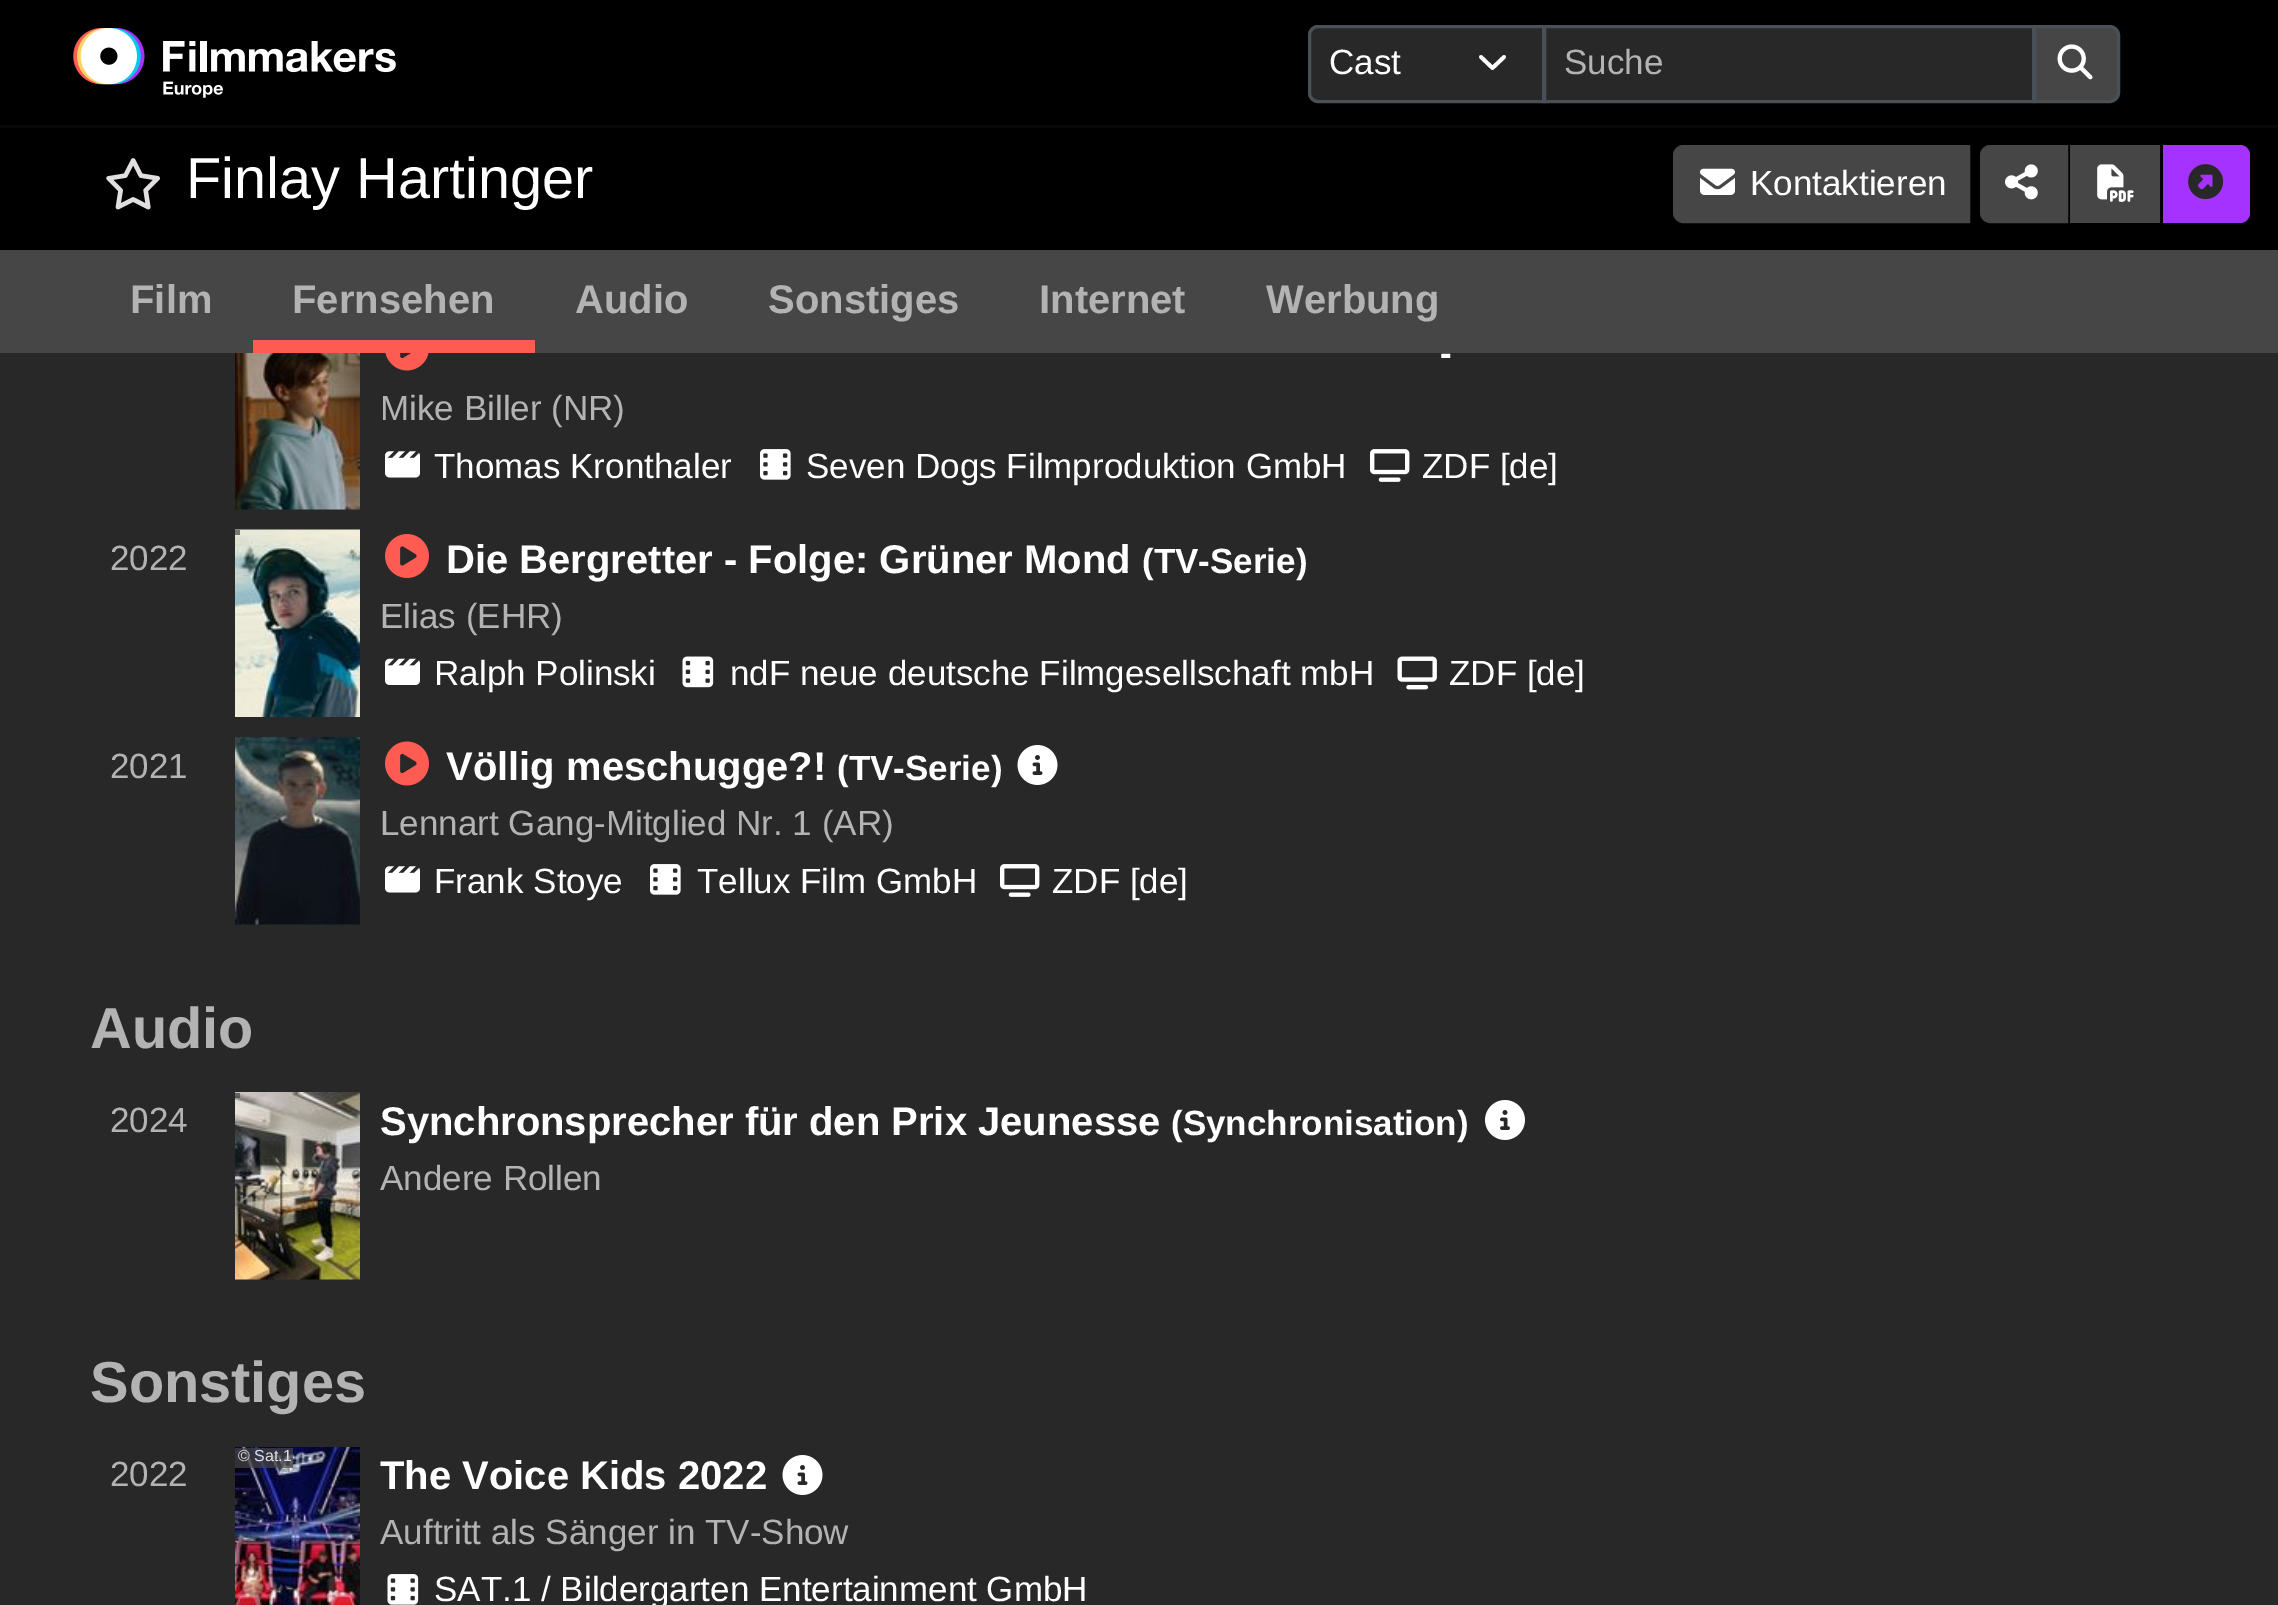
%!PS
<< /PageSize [2278 1605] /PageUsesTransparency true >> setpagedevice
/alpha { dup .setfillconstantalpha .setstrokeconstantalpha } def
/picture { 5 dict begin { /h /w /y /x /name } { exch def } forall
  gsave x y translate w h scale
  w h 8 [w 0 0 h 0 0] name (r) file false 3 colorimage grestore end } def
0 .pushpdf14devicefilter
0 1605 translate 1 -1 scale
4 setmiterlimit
0.157 setgray
0 0 2278 1605 rectfill
0 setgray
0 0 2278 250 rectfill
0.2 alpha
0.157 setgray
0 125 2278 3 rectfill
1 alpha
(img1.rgb) 73 28 323 70 picture
newpath 1318 25 moveto 1545 25 lineto 1545 103 lineto 1318 103 lineto 1312.5 103 1308 98.5 1308 93 curveto 1308 35 lineto 1308 29.5 1312.5 25 1318 25 curveto closepath fill
1 setgray
3.8 setlinewidth
1 setlinecap
1 setlinejoin
newpath 1481 57 moveto 1492.5 68 lineto 1504 57 lineto stroke
0.286 0.314 0.341 setrgbcolor
3 setlinewidth
0 setlinecap
0 setlinejoin
newpath 1318 26.5 moveto 1543.5 26.5 lineto 1543.5 101.5 lineto 1318 101.5 lineto 1313.5 101.5 1309.5 97.5 1309.5 93 curveto 1309.5 35 lineto 1309.5 30.5 1313.5 26.5 1318 26.5 curveto closepath stroke
/LiberationSans-Regular [35 0 0 -35 0 0] selectfont
1 setgray
1329 74 moveto (Cast) show
0.157 setgray
newpath 1544.5 26.5 moveto 2033.5 26.5 lineto 2033.5 101.5 lineto 1544.5 101.5 lineto closepath gsave fill grestore
0.286 0.314 0.341 setrgbcolor
stroke
0.702 setgray
1564 74 moveto (Suche) show
0.275 setgray
newpath 2034.5 26.5 moveto 2110 26.5 lineto 2114.5 26.5 2118.5 30.5 2118.5 35 curveto 2118.5 93 lineto 2118.5 97.5 2114.5 101.5 2110 101.5 curveto 2034.5 101.5 lineto closepath gsave fill grestore
0.286 0.314 0.341 setrgbcolor
stroke
(img2.rgb) 2057 44 36 36 picture
(img3.rgb) 106 158 54 52 picture
/LiberationSans-Regular [57.75 0 0 -57.75 0 0] selectfont
1 setgray
186 198 moveto (Finlay Hartinger) show
0.275 setgray
newpath 1683 146.5 moveto 1968.5 146.5 lineto 1968.5 221.5 lineto 1683 221.5 lineto 1678.5 221.5 1674.5 217.5 1674.5 213 curveto 1674.5 155 lineto 1674.5 150.5 1678.5 146.5 1683 146.5 curveto closepath gsave fill grestore
stroke
(img4.rgb) 1700 168 35 27 picture
/LiberationSans-Regular [35 0 0 -35 0 0] selectfont
1 setgray
1750 195 moveto (Kontaktieren) show
0.275 setgray
newpath 1990 146.5 moveto 2066.5 146.5 lineto 2066.5 221.5 lineto 1990 221.5 lineto 1985.5 221.5 1981.5 217.5 1981.5 213 curveto 1981.5 155 lineto 1981.5 150.5 1985.5 146.5 1990 146.5 curveto closepath gsave fill grestore
stroke
(img5.rgb) 2005 164 33 36 picture
2070 145 90 78 rectfill
(img6.rgb) 2097 164 37 38 picture
0.647 0.196 1 setrgbcolor
newpath 2163 145 moveto 2240 145 lineto 2245.5 145 2250 149.5 2250 155 curveto 2250 213 lineto 2250 218.5 2245.5 223 2240 223 curveto 2163 223 lineto closepath fill
(img7.rgb) 2188 164 36 36 picture
0.275 setgray
0 250 2278 103 rectfill
/LiberationSans-Bold [40 0 0 -40 0 0] selectfont
0.702 setgray
130 313 moveto (Film) show
0.996 0.361 0.325 setrgbcolor
253 340 282 13 rectfill
0.702 setgray
292 313 moveto (Fernsehen) show
575 313 moveto (Audio) show
768 313 moveto (Sonstiges) show
1039 313 moveto (Internet) show
1266 313 moveto (Werbung) show
(img8.rgb) 235 353 125 157 picture
(img9.rgb) 385 353 44 18 picture
/LiberationSans-Bold [35 0 0 -35 0 0] selectfont
1 setgray
1440 365 moveto (-) show
/LiberationSans-Regular [35 0 0 -35 0 0] selectfont
0.702 setgray
380 420 moveto (Mike Biller \(NR\)) show
(img10.rgb) 385 451 35 27 picture
1 setgray
434 478 moveto (Thomas Kronthaler) show
(img11.rgb) 760 449 31 31 picture
806 478 moveto (Seven Dogs Filmproduktion GmbH) show
(img12.rgb) 1370 449 40 33 picture
1422 478 moveto (ZDF [de]) show
0.702 setgray
110 570 moveto (2022) show
(img13.rgb) 235 529 125 188 picture
0.7 alpha
0.275 setgray
235 530 5 5 rectfill
1 alpha
(img14.rgb) 385 534 44 44 picture
/LiberationSans-Bold [40 0 0 -40 0 0] selectfont
1 setgray
446 573 moveto (Die Bergretter - Folge: Grüner Mond) show
/LiberationSans-Bold [35 0 0 -35 0 0] selectfont
1142 573 moveto (\(TV-Serie\)) show
/LiberationSans-Regular [35 0 0 -35 0 0] selectfont
0.702 setgray
380 628 moveto (Elias \(EHR\)) show
(img15.rgb) 385 658 35 27 picture
1 setgray
434 685 moveto (Ralph Polinski) show
(img16.rgb) 682 656 32 32 picture
730 685 moveto (ndF neue deutsche Filmgesellschaft mbH) show
(img17.rgb) 1397 656 40 34 picture
1449 685 moveto (ZDF [de]) show
0.702 setgray
110 778 moveto (2021) show
(img18.rgb) 235 737 125 188 picture
0.7 alpha
0.275 setgray
235 738 5 5 rectfill
1 alpha
(img19.rgb) 385 741 44 45 picture
/LiberationSans-Bold [40 0 0 -40 0 0] selectfont
1 setgray
446 780 moveto (Völlig meschugge?!) show
/LiberationSans-Bold [35 0 0 -35 0 0] selectfont
837 780 moveto (\(TV-Serie\)) show
(img20.rgb) 1017 745 41 40 picture
/LiberationSans-Regular [35 0 0 -35 0 0] selectfont
0.702 setgray
380 835 moveto (Lennart Gang-Mitglied Nr. 1 \(AR\)) show
(img10.rgb) 385 866 35 27 picture
1 setgray
434 893 moveto (Frank Stoye) show
(img11.rgb) 650 864 31 31 picture
697 893 moveto (Tellux Film GmbH) show
(img12.rgb) 1000 864 40 33 picture
1052 893 moveto (ZDF [de]) show
/LiberationSans-Bold [57.75 0 0 -57.75 0 0] selectfont
0.702 setgray
90 1048 moveto (Audio) show
/LiberationSans-Regular [35 0 0 -35 0 0] selectfont
110 1132 moveto (2024) show
(img21.rgb) 235 1092 125 188 picture
0.7 alpha
0.275 setgray
235 1093 5 5 rectfill
/LiberationSans-Bold [40 0 0 -40 0 0] selectfont
1 alpha
1 setgray
380 1135 moveto (Synchronsprecher für den Prix Jeunesse) show
/LiberationSans-Bold [35 0 0 -35 0 0] selectfont
1171 1135 moveto (\(Synchronisation\)) show
(img22.rgb) 1485 1100 40 40 picture
/LiberationSans-Regular [35 0 0 -35 0 0] selectfont
0.702 setgray
380 1190 moveto (Andere Rollen) show
/LiberationSans-Bold [57.75 0 0 -57.75 0 0] selectfont
90 1402 moveto (Sonstiges) show
/LiberationSans-Regular [35 0 0 -35 0 0] selectfont
110 1486 moveto (2022) show
(img23.rgb) 235 1447 125 158 picture
0.7 alpha
0.275 setgray
235 1448 58 20 rectfill
/LiberationSans-Regular [16 0 0 -16 0 0] selectfont
1 alpha
0.882 0.875 0.875 setrgbcolor
238 1461 moveto (© Sat.1) show
/LiberationSans-Bold [40 0 0 -40 0 0] selectfont
1 setgray
380 1489 moveto (The Voice Kids 2022) show
(img20.rgb) 782 1455 41 40 picture
/LiberationSans-Regular [35 0 0 -35 0 0] selectfont
0.702 setgray
380 1544 moveto (Auftritt als Sänger in TV-Show) show
(img24.rgb) 387 1574 32 31 picture
1 setgray
434 1601 moveto (SAT.1 / Bildergarten Entertainment GmbH) show
.poppdf14devicefilter showpage
